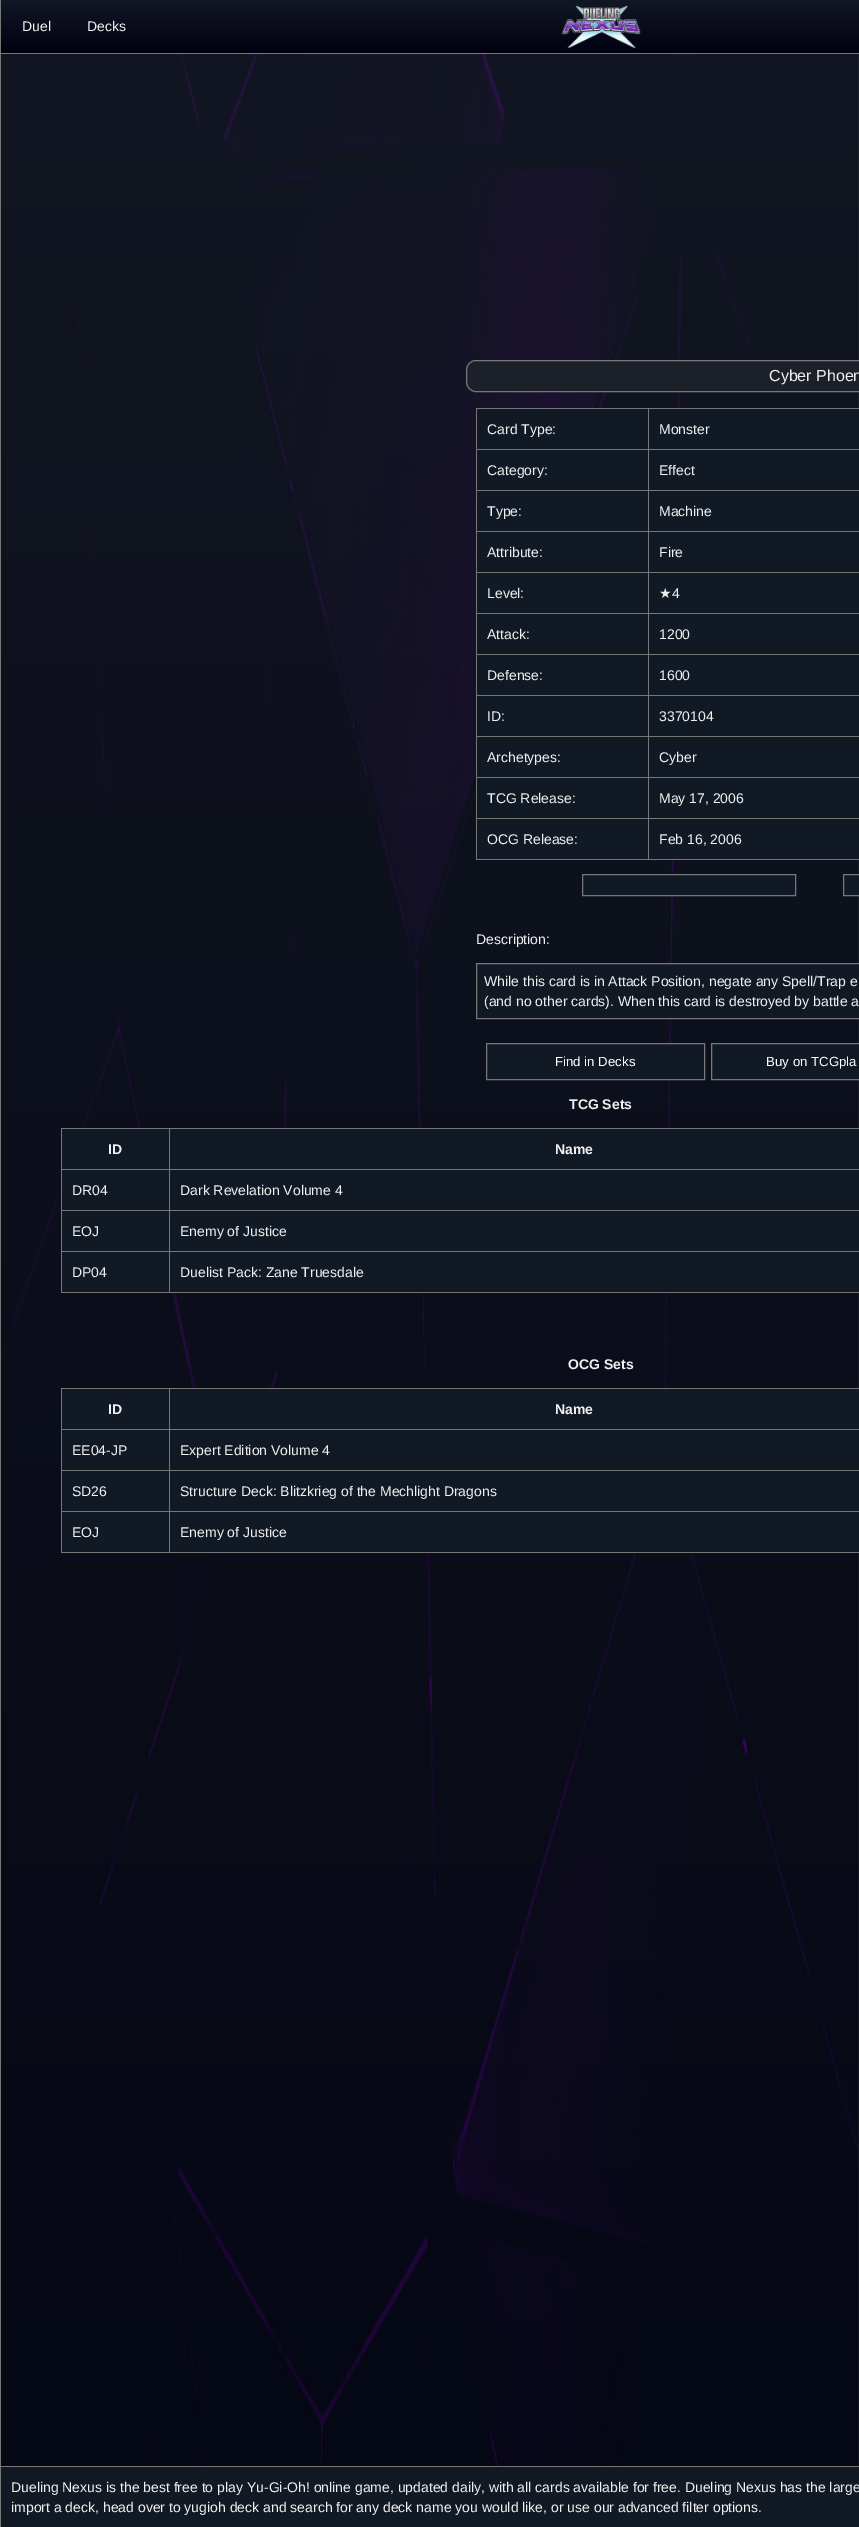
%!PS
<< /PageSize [859 2527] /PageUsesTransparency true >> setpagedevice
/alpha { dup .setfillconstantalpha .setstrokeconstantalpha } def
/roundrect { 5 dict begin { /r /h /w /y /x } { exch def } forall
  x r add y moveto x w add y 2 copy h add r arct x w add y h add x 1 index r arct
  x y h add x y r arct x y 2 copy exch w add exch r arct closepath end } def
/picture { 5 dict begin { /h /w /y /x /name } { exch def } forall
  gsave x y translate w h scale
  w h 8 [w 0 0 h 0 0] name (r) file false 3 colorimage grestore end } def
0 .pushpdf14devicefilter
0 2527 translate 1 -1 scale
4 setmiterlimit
1 setgray
0 0 859 2527 rectfill
(img1.rgb) 1 54 858 2412 picture
0.7 alpha
gsave newpath 1 54 moveto 859 54 lineto 859 2466 lineto 1 2466 lineto closepath clip newpath
<< /ShadingType 2 /ColorSpace /DeviceRGB /Coords [601 0 601 2527] /Extend [true true] /Function << /FunctionType 2 /Domain [0 1] /C0 [0.071 0.09 0.141] /C1 [0.004 0.004 0.067] /N 1 >> >> shfill grestore
1 alpha
0.467 setgray
0 0 1 2527 rectfill
gsave newpath 1 0 moveto 859 0 lineto 859 53 lineto 1 53 lineto closepath clip newpath
<< /ShadingType 2 /ColorSpace /DeviceRGB /Coords [601 0 601 53] /Extend [true true] /Function << /FunctionType 2 /Domain [0 1] /C0 [0.071 0.09 0.141] /C1 [0.004 0.004 0.067] /N 1 >> >> shfill grestore
1 53 858 1 rectfill
/LiberationSans-Regular [14 0 0 -14 0 0] selectfont
0.941 setgray
22 31 moveto (Duel) show
87 31 moveto (Decks) show
(img2.rgb) 561 5 80 44 picture
0.106 0.125 0.161 setrgbcolor
466.5 360.5 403 31 9.5 roundrect gsave fill grestore
0.467 setgray
stroke
/LiberationSans-Regular [16 0 0 -16 0 0] selectfont
0.941 setgray
769 381 moveto (Cyber Phoen) show
0.067 0.098 0.145 setrgbcolor
477 409 382 450 rectfill
0.467 setgray
476 408 383 1 rectfill
476 859 383 1 rectfill
476 408 1 452 rectfill
/LiberationSans-Regular [14 0 0 -14 0 0] selectfont
0.941 setgray
487 434 moveto (Card Type:) show
659 434 moveto (Monster) show
0.467 setgray
476 449 383 1 rectfill
0.941 setgray
487 475 moveto (Category:) show
659 475 moveto (Effect) show
0.467 setgray
476 490 383 1 rectfill
0.941 setgray
487 516 moveto (Type:) show
659 516 moveto (Machine) show
0.467 setgray
476 531 383 1 rectfill
0.941 setgray
487 557 moveto (Attribute:) show
659 557 moveto (Fire) show
0.467 setgray
476 572 383 1 rectfill
0.941 setgray
487 598 moveto (Level:) show
/DejaVuSans-Regular [14 0 0 -14 0 0] selectfont
659 598 moveto (★) show
/LiberationSans-Regular [14 0 0 -14 0 0] selectfont
672 598 moveto (4) show
0.467 setgray
476 613 383 1 rectfill
0.941 setgray
487 639 moveto (Attack:) show
659 639 moveto (1200) show
0.467 setgray
476 654 383 1 rectfill
0.941 setgray
487 680 moveto (Defense:) show
659 680 moveto (1600) show
0.467 setgray
476 695 383 1 rectfill
0.941 setgray
487 721 moveto (ID:) show
659 721 moveto (3370104) show
0.467 setgray
476 736 383 1 rectfill
0.941 setgray
487 762 moveto (Archetypes:) show
659 762 moveto (Cyber) show
0.467 setgray
476 777 383 1 rectfill
0.941 setgray
487 803 moveto (TCG Release:) show
659 803 moveto (May 17, 2006) show
0.467 setgray
476 818 383 1 rectfill
0.941 setgray
487 844 moveto (OCG Release:) show
0.467 setgray
648 408 1 452 rectfill
0.941 setgray
659 844 moveto (Feb 16, 2006) show
0.067 0.098 0.145 setrgbcolor
newpath 582.5 874.5 moveto 795.5 874.5 lineto 795.5 895.5 lineto 582.5 895.5 lineto closepath gsave fill grestore
0.467 setgray
stroke
0.067 0.098 0.145 setrgbcolor
newpath 843.5 874.5 moveto 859.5 874.5 lineto 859.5 895.5 lineto 843.5 895.5 lineto closepath gsave fill grestore
0.467 setgray
stroke
0.941 setgray
476 944 moveto (Description:) show
0.067 0.098 0.145 setrgbcolor
newpath 476.5 963.5 moveto 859.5 963.5 lineto 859.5 1018.5 lineto 476.5 1018.5 lineto closepath gsave fill grestore
0.467 setgray
stroke
0.941 setgray
484 986 moveto (While this card is in Attack Position, negate any Spell/Trap e) show
484 1006 moveto (\(and no other cards\). When this card is destroyed by battle a) show
0.067 0.098 0.145 setrgbcolor
newpath 486.5 1043.5 moveto 704.5 1043.5 lineto 704.5 1079.5 lineto 486.5 1079.5 lineto closepath gsave fill grestore
0.467 setgray
stroke
/LiberationSans-Regular [13.25 0 0 -13.25 0 0] selectfont
1 setgray
555 1066 moveto (Find in Decks) show
0.067 0.098 0.145 setrgbcolor
newpath 711.5 1043.5 moveto 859.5 1043.5 lineto 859.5 1079.5 lineto 711.5 1079.5 lineto closepath gsave fill grestore
0.467 setgray
stroke
1 setgray
766 1066 moveto (Buy on TCGpla) show
/LiberationSans-Bold [14 0 0 -14 0 0] selectfont
0.941 setgray
569 1109 moveto (TCG Sets) show
0.067 0.098 0.145 setrgbcolor
62 1129 797 163 rectfill
0.467 setgray
61 1128 798 1 rectfill
61 1169 798 1 rectfill
61 1210 798 1 rectfill
61 1251 798 1 rectfill
61 1292 798 1 rectfill
61 1251 1 42 rectfill
61 1210 1 42 rectfill
61 1169 1 42 rectfill
61 1128 1 42 rectfill
0.941 setgray
108 1154 moveto (ID) show
555 1154 moveto (Name) show
/LiberationSans-Regular [14 0 0 -14 0 0] selectfont
72 1195 moveto (DR04) show
180 1195 moveto (Dark Revelation Volume 4) show
72 1236 moveto (EOJ) show
180 1236 moveto (Enemy of Justice) show
72 1277 moveto (DP04) show
0.467 setgray
169 1128 1 165 rectfill
0.941 setgray
180 1277 moveto (Duelist Pack: Zane Truesdale) show
/LiberationSans-Bold [14 0 0 -14 0 0] selectfont
568 1369 moveto (OCG Sets) show
0.067 0.098 0.145 setrgbcolor
62 1389 797 163 rectfill
0.467 setgray
61 1388 798 1 rectfill
61 1429 798 1 rectfill
61 1470 798 1 rectfill
61 1511 798 1 rectfill
61 1552 798 1 rectfill
61 1511 1 42 rectfill
61 1470 1 42 rectfill
61 1429 1 42 rectfill
61 1388 1 42 rectfill
0.941 setgray
108 1414 moveto (ID) show
555 1414 moveto (Name) show
/LiberationSans-Regular [14 0 0 -14 0 0] selectfont
72 1455 moveto (EE04-JP) show
180 1455 moveto (Expert Edition Volume 4) show
72 1496 moveto (SD26) show
180 1496 moveto (Structure Deck: Blitzkrieg of the Mechlight Dragons) show
72 1537 moveto (EOJ) show
0.467 setgray
169 1388 1 165 rectfill
0.941 setgray
180 1537 moveto (Enemy of Justice) show
0.067 0.098 0.145 setrgbcolor
1 2467 858 60 rectfill
0.467 setgray
1 2466 858 1 rectfill
0.941 setgray
11 2492 moveto (Dueling Nexus is the best free to play Yu-Gi-Oh! online game, updated daily, with all cards available for free. Dueling Nexus has the large) show
11 2512 moveto (import a deck, head over to yugioh deck and search for any deck name you would like, or use our advanced filter options.) show
.poppdf14devicefilter showpage
